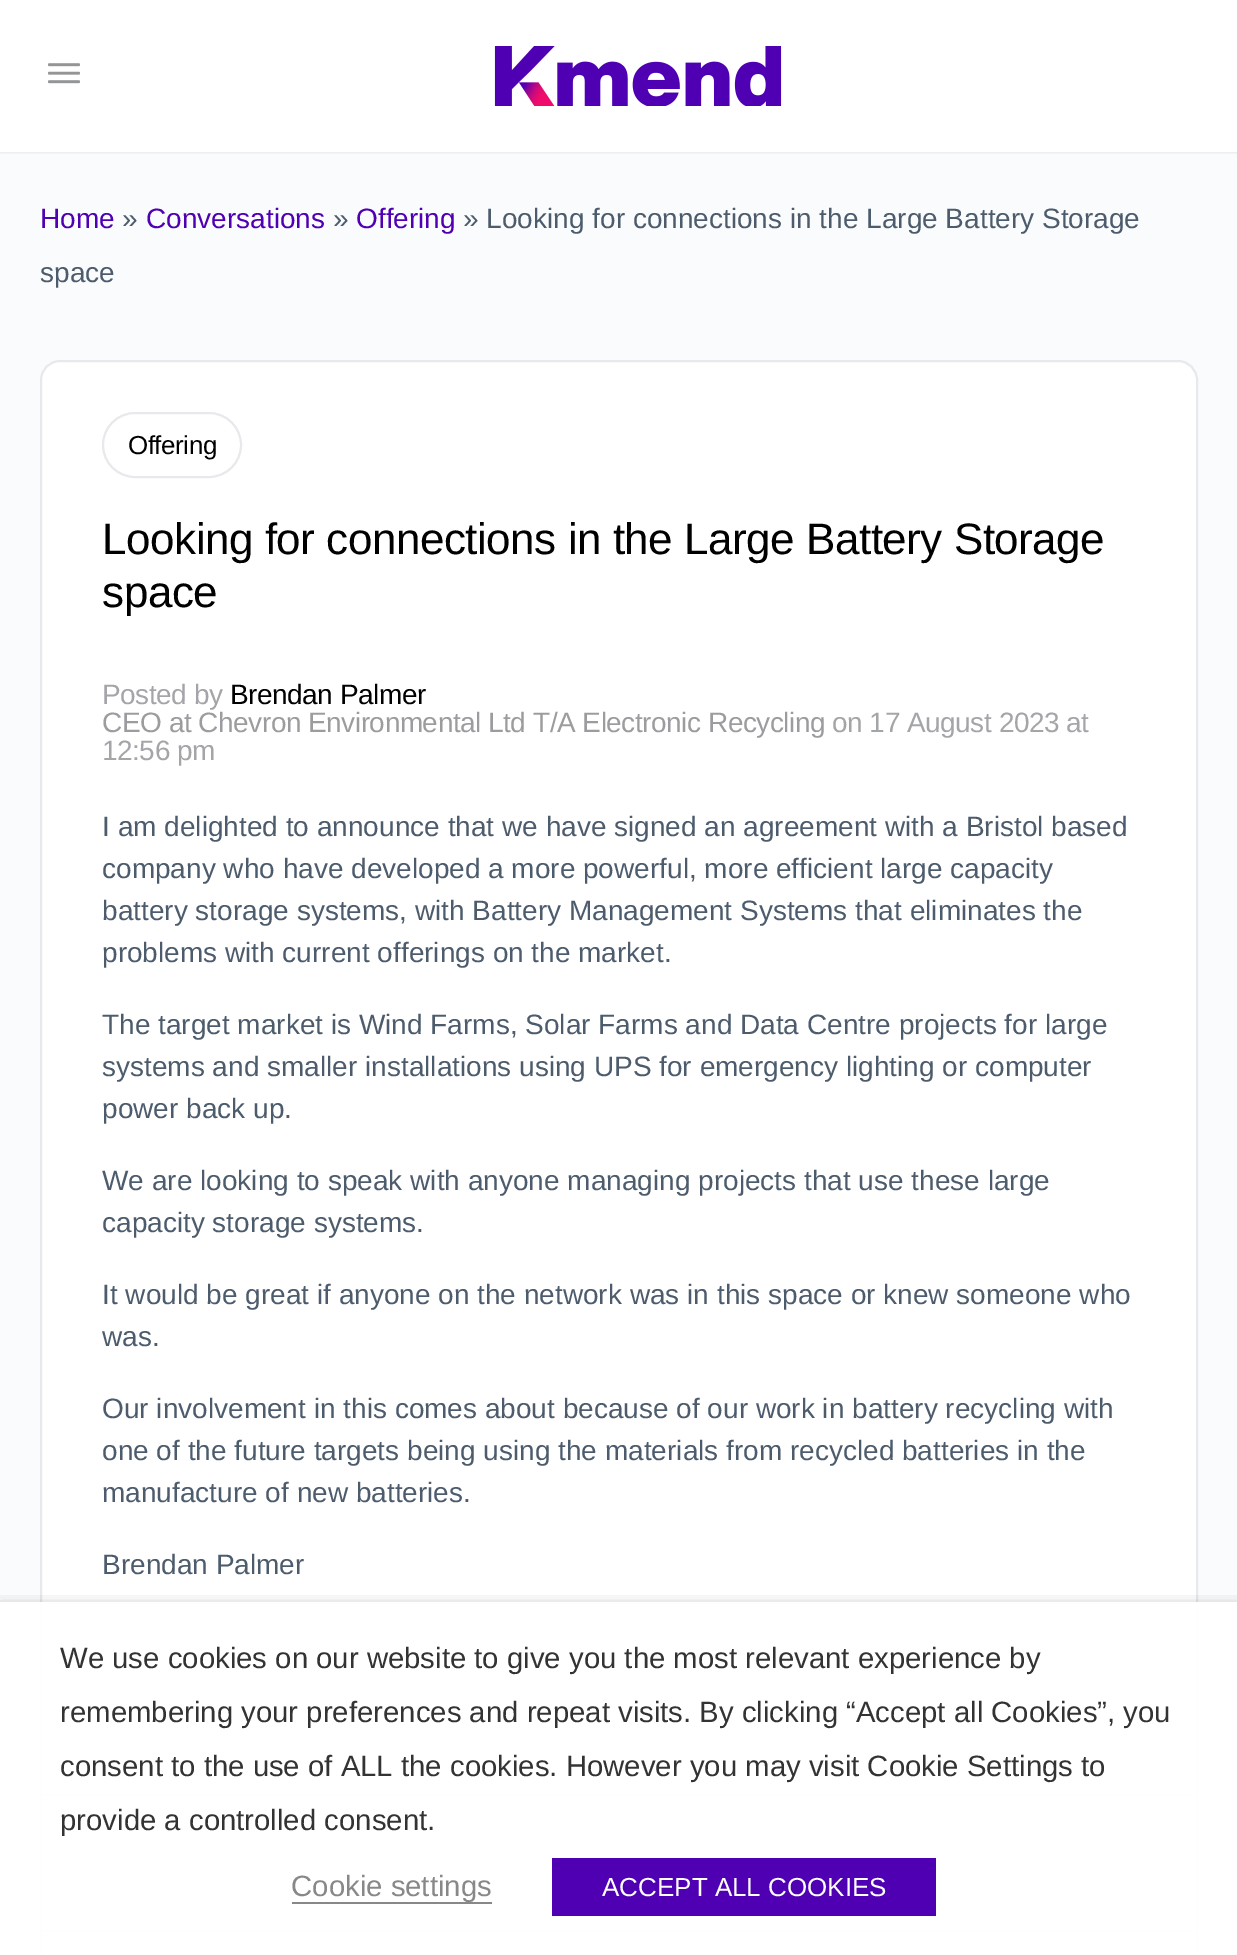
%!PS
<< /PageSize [1237 1955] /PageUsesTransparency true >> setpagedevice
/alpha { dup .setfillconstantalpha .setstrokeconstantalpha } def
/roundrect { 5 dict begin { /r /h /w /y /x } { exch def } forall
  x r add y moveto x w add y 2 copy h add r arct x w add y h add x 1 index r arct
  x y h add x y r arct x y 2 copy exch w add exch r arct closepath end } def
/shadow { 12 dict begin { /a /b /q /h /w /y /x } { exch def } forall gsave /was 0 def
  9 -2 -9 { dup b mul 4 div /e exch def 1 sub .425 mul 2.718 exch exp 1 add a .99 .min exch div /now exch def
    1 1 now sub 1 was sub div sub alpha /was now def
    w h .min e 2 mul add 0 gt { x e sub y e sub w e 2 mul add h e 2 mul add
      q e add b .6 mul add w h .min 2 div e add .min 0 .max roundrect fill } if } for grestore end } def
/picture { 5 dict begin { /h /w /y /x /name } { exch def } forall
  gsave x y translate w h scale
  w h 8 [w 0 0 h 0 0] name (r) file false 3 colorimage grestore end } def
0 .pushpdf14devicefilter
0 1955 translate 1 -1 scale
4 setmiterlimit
0.98 0.984 0.992 setrgbcolor
0 0 1237 1955 rectfill
0.255 0.278 0.424 setrgbcolor
0 0 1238 152 0 1 0.15 shadow
0.05 alpha
0.545 0.553 0.616 setrgbcolor
0 152 1237 2 rectfill
1 alpha
1 setgray
0 0 1237 152 rectfill
(img1.rgb) 48 63 32 21 picture
(img2.rgb) 494 46 288 60 picture
/LiberationSans-Regular [28 0 0 -28 0 0] selectfont
0.31 0 0.702 setrgbcolor
40 228 moveto (Home) show
0.302 0.361 0.427 setrgbcolor
122 228 moveto (») show
0.31 0 0.702 setrgbcolor
146 228 moveto (Conversations) show
0.302 0.361 0.427 setrgbcolor
333 228 moveto (») show
0.31 0 0.702 setrgbcolor
356 228 moveto (Offering) show
0.302 0.361 0.427 setrgbcolor
463 228 moveto (» Looking for connections in the Large Battery Storage) show
40 282 moveto (space) show
1 setgray
newpath 60 361 moveto 1178 361 lineto 1188.5 361 1197 369.5 1197 380 curveto 1197 1795 lineto 41 1795 lineto 41 380 lineto 41 369.5 49.5 361 60 361 curveto closepath gsave fill grestore
0.906 0.914 0.925 setrgbcolor
2 setlinewidth
stroke
103 413 138 64 32 roundrect stroke
/LiberationSans-Regular [26 0 0 -26 0 0] selectfont
0 setgray
128 454 moveto -0.48 0 (Offering) ashow
/LiberationSans-Regular [44 0 0 -44 0 0] selectfont
102 554 moveto -0.48 0 (Looking for connections in the Large Battery Storage) ashow
102 607 moveto -0.48 0 (space) ashow
/LiberationSans-Regular [28 0 0 -28 0 0] selectfont
230 704 moveto -0.48 0 (Brendan Palmer) ashow
0.608 0.612 0.624 setrgbcolor
102 732 moveto -0.48 0 (CEO at Chevron Environmental Ltd T/A Electronic Recycling) ashow
0.639 0.647 0.663 setrgbcolor
102 704 moveto -0.48 0 (Posted by) ashow
832 732 moveto -0.48 0 (on 17 August 2023 at) ashow
102 760 moveto -0.48 0 (12:56 pm) ashow
0.302 0.361 0.427 setrgbcolor
102 836 moveto (I am delighted to announce that we have signed an agreement with a Bristol based) show
102 878 moveto (company who have developed a more powerful, more efficient large capacity) show
102 920 moveto (battery storage systems, with Battery Management Systems that eliminates the) show
102 962 moveto (problems with current offerings on the market.) show
102 1034 moveto (The target market is Wind Farms, Solar Farms and Data Centre projects for large) show
102 1076 moveto (systems and smaller installations using UPS for emergency lighting or computer) show
102 1118 moveto (power back up.) show
102 1190 moveto (We are looking to speak with anyone managing projects that use these large) show
102 1232 moveto (capacity storage systems.) show
102 1304 moveto (It would be great if anyone on the network was in this space or knew someone who) show
102 1346 moveto (was.) show
102 1418 moveto (Our involvement in this comes about because of our work in battery recycling with) show
102 1460 moveto (one of the future targets being using the materials from recycled batteries in the) show
102 1502 moveto (manufacture of new batteries.) show
102 1574 moveto (Brendan Palmer) show
1 setgray
42 1796 1154 134 rectfill
0.906 0.914 0.925 setrgbcolor
1196 1796 2 136 rectfill
40 1796 2 136 rectfill
1 setgray
newpath 41 1931 moveto 1197 1931 lineto 1197 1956 lineto 41 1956 lineto closepath gsave fill grestore
0.906 0.914 0.925 setrgbcolor
stroke
gsave
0 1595 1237 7 rectclip
0 setgray
0 1612 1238 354 0 10 0.5 shadow
grestore
0.97 alpha
1 setgray
0 1602 1237 353 rectfill
/LiberationSans-Regular [29.35 0 0 -29.35 0 0] selectfont
1 alpha
0.2 setgray
60 1668 moveto (We use cookies on our website to give you the most relevant experience by) show
60 1722 moveto (remembering your preferences and repeat visits. By clicking “Accept all Cookies”, you) show
60 1776 moveto (consent to the use of ALL the cookies. However you may visit Cookie Settings to) show
60 1830 moveto (provide a controlled consent.) show
0.537 0.533 0.533 setrgbcolor
292 1902 200 2 rectfill
291 1896 moveto (Cookie settings) show
0.31 0 0.702 setrgbcolor
552 1858 384 58 rectfill
/LiberationSans-Regular [26 0 0 -26 0 0] selectfont
1 setgray
602 1896 moveto (ACCEPT ALL COOKIES) show
.poppdf14devicefilter showpage
